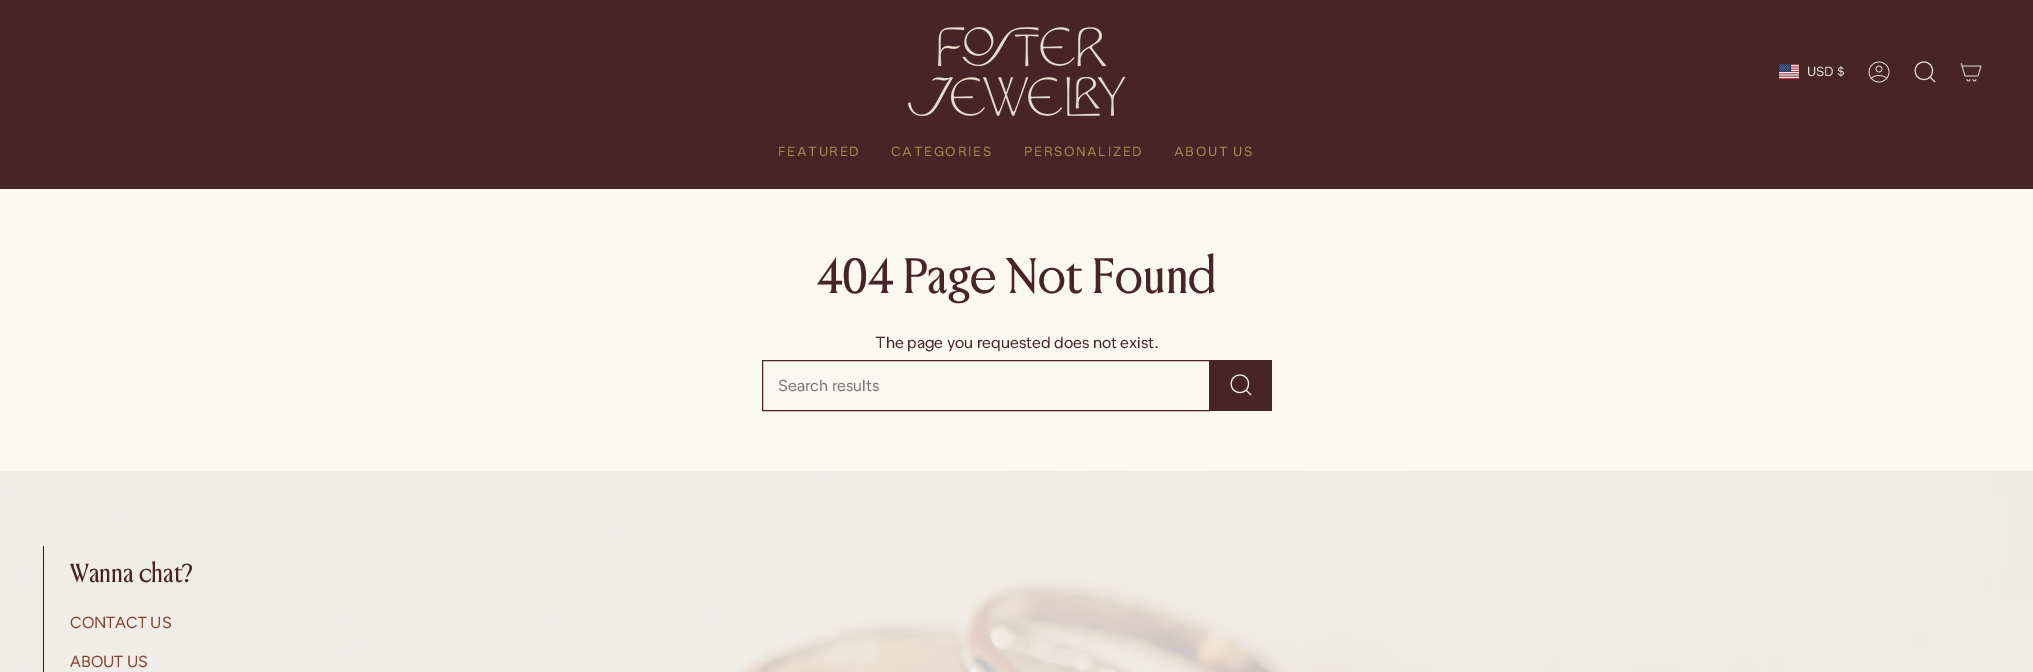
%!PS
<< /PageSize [2033 672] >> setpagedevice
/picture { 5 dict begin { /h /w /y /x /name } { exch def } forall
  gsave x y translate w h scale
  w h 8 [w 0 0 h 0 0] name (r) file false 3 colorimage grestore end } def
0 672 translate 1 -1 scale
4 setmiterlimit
0.984 0.969 0.953 setrgbcolor
0 0 2033 672 rectfill
0.278 0.141 0.149 setrgbcolor
0 0 2033 189 rectfill
(img1.rgb) 908 27 218 89 picture
(img2.rgb) 1779 64 20 15 picture
/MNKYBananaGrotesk-Regular [13.25 0 0 -13.25 0 0] selectfont
0.902 0.871 0.812 setrgbcolor
1807 76 moveto (USD $) show
(img3.rgb) 1868 61 22 22 picture
newpath 1924 62 moveto 1935.5 62 1935.5 80 1923.5 79.5 curveto 1912 79 1912.5 62 1924 62 curveto closepath 1930 77 moveto 1935 82 lineto stroke
(img4.rgb) 1960 63 22 19 picture
0.671 0.549 0.322 setrgbcolor
778 156 moveto 1.6 0 (FEATURED) ashow
891 156 moveto 1.6 0 (CATEGORIES) ashow
1024 156 moveto 1.6 0 (PERSONALIZED) ashow
1174 156 moveto 1.6 0 (ABOUT US) ashow
/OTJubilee-Regular [49.5 0 0 -49.5 0 0] selectfont
0.278 0.141 0.149 setrgbcolor
817 293 moveto (404 Page Not Found) show
/MNKYBananaGrotesk-Regular [16 0 0 -16 0 0] selectfont
875 348 moveto (The page you requested does not exist.) show
762.5 360.5 447 50 rectstroke
/Figtree-Regular [16 0 0 -16 0 0] selectfont
0.459 setgray
778 391 moveto (Search results) show
0.278 0.141 0.149 setrgbcolor
1210 360 62 51 rectfill
0.984 0.969 0.953 setrgbcolor
newpath 1240 375 moveto 1251.5 375 1251.5 393 1239.5 392.5 curveto 1228 392 1228.5 375 1240 375 curveto closepath 1246 390 moveto 1251 395 lineto stroke
(img5.rgb) 0 471 2033 201 picture
0.129 setgray
43 546 1 126 rectfill
/OTJubilee-Regular [26 0 0 -26 0 0] selectfont
0.278 0.141 0.149 setrgbcolor
70 582 moveto (Wanna chat?) show
/Figtree-Regular [16 0 0 -16 0 0] selectfont
0.514 0.255 0.173 setrgbcolor
70 628 moveto (CONTACT US) show
70 667 moveto (ABOUT US) show
showpage
